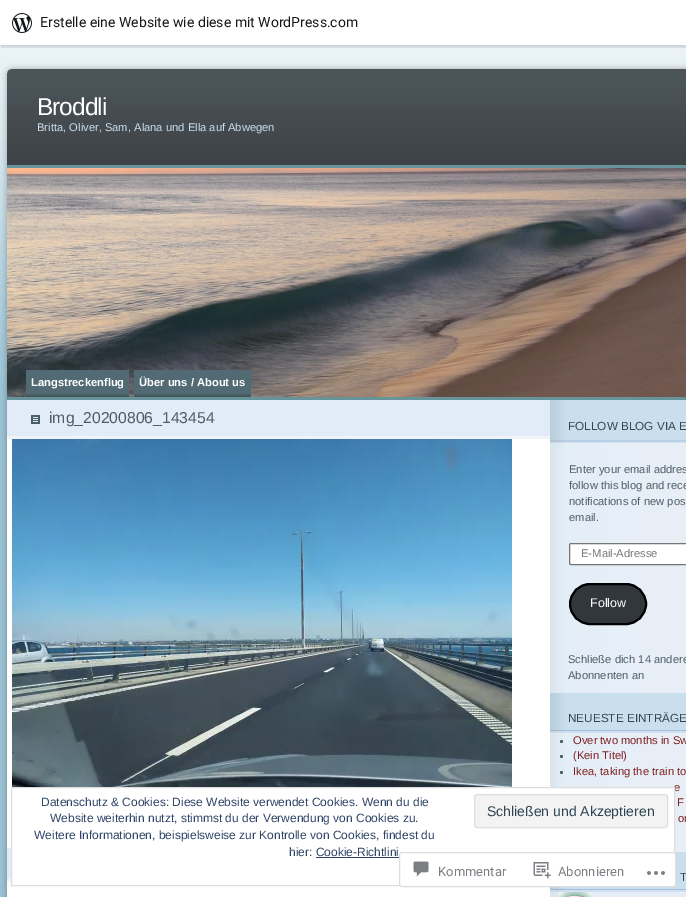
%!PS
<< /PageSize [686 897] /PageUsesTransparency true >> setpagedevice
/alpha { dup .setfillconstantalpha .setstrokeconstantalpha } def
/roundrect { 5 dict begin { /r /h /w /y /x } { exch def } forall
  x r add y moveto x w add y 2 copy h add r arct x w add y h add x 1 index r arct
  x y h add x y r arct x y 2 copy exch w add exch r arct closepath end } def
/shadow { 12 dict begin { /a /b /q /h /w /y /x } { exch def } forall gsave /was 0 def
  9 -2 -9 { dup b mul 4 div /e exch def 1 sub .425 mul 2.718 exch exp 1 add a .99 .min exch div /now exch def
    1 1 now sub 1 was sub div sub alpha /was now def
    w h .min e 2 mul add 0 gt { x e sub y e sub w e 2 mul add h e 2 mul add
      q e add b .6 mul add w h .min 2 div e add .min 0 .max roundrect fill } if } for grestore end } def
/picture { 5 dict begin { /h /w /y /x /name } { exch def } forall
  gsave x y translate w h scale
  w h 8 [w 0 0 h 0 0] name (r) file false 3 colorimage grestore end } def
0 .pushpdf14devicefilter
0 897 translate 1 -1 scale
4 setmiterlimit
1 setgray
0 0 686 897 rectfill
(img3.rgb) 0 45 686 350 picture
0 setgray
0 1 686 45 0 1 0.05 shadow
0.08 alpha
newpath 1 45 moveto 1 48 lineto 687 48 lineto 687 3 lineto 686 3 lineto 686 45 lineto closepath fill
1 alpha
1 setgray
0 0 686 45 rectfill
(img1.rgb) 12 13 20 20 picture
/Roboto-Regular [14 0 0 -14 0 0] selectfont
0.09 setgray
40 27 moveto (Erstelle eine Website wie diese mit WordPress.com) show
(img2.rgb) 0 395 686 502 picture
/LiberationSans-Regular [24.5 0 0 -24.5 0 0] selectfont
1 setgray
37 115 moveto -1 0 (Broddli) ashow
/LiberationSans-Regular [11.2 0 0 -11.2 0 0] selectfont
0.792 0.875 0.929 setrgbcolor
37 131 moveto (Britta, Oliver, Sam, Alana und Ella auf Abwegen) show
(img4.rgb) 7 168 679 229 picture
0.404 0.576 0.608 setrgbcolor
7 165 679 3 rectfill
7 397 679 3 rectfill
0.255 0.306 0.325 setrgbcolor
26 396 103 1 rectfill
0.322 0.416 0.455 setrgbcolor
26 370 103 24 rectfill
0.29 0.369 0.396 setrgbcolor
26 394 103 2 rectfill
/LiberationSans-Bold [11.2 0 0 -11.2 0 0] selectfont
1 setgray
31 386 moveto (Langstreckenflug) show
0.255 0.306 0.325 setrgbcolor
134 396 117 1 rectfill
0.322 0.416 0.455 setrgbcolor
134 370 117 24 rectfill
0.29 0.369 0.396 setrgbcolor
134 394 117 2 rectfill
1 setgray
139 386 moveto (Über uns / About us) show
0.886 0.922 0.973 setrgbcolor
7 400 543 36 rectfill
0.945 0.957 0.965 setrgbcolor
7 436 543 3 rectfill
(img5.rgb) 31 415 9 9 picture
/LiberationSans-Regular [15.75 0 0 -15.75 0 0] selectfont
0.294 0.365 0.404 setrgbcolor
49 423 moveto (img_20200806_143454) show
(img6.rgb) 12 439 500 348 picture
0.886 0.922 0.973 setrgbcolor
7 848 4 31 rectfill
0.945 0.957 0.965 setrgbcolor
7 879 4 3 rectfill
(img7.rgb) 550 400 136 43 picture
/LiberationSans-Regular [11.75 0 0 -11.75 0 0] selectfont
0.196 0.278 0.294 setrgbcolor
568 430 moveto (FOLLOW BLOG VIA E) show
/LiberationSans-Regular [11.2 0 0 -11.2 0 0] selectfont
0.294 0.365 0.404 setrgbcolor
569 473 moveto (Enter your email addres) show
569 489 moveto (follow this blog and rece) show
569 505 moveto (notifications of new pos) show
569 521 moveto (email.) show
1 setgray
569.5 543.5 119 21 1.5 roundrect gsave fill grestore
0.463 setgray
stroke
0.459 setgray
581 557 moveto (E-Mail-Adresse) show
0.196 0.216 0.235 setrgbcolor
570 584 76 40 20 roundrect gsave fill grestore
0 setgray
2 setlinewidth
stroke
/LiberationSans-Regular [12.5 0 0 -12.5 0 0] selectfont
1 setgray
590 607 moveto (Follow) show
/LiberationSans-Regular [11.2 0 0 -11.2 0 0] selectfont
0.294 0.365 0.404 setrgbcolor
568 663 moveto (Schließe dich 14 andere) show
568 679 moveto (Abonnenten an) show
(img8.rgb) 550 693 136 40 picture
/LiberationSans-Regular [11.75 0 0 -11.75 0 0] selectfont
0.196 0.278 0.294 setrgbcolor
568 722 moveto (NEUESTE EINTRÄGE) show
0.294 0.365 0.404 setrgbcolor
newpath 561.5 741.5 1.5 0 360 arc closepath fill
/LiberationSans-Regular [11.2 0 0 -11.2 0 0] selectfont
0.498 0.114 0.114 setrgbcolor
573 744 moveto (Over two months in Sw) show
0.294 0.365 0.404 setrgbcolor
newpath 561.5 756.5 1.5 0 360 arc closepath fill
0.498 0.114 0.114 setrgbcolor
573 759 moveto (\(Kein Titel\)) show
0.294 0.365 0.404 setrgbcolor
newpath 561.5 772.5 1.5 0 360 arc closepath fill
0.498 0.114 0.114 setrgbcolor
573 775 moveto (Ikea, taking the train to) show
674 791 moveto (e) show
677 806 moveto (F) show
678 822 moveto (or) show
(img8.rgb) 550 852 136 40 picture
/LiberationSans-Regular [11.75 0 0 -11.75 0 0] selectfont
0.196 0.278 0.294 setrgbcolor
680 881 moveto (T) show
(img9.rgb) 559 892 32 5 picture
1 setgray
550 788 124 97 rectfill
0.871 setgray
1 setlinewidth
11.5 787.5 663 98 rectstroke
/LiberationSans-Regular [12 0 0 -12 0 0] selectfont
0.18 0.267 0.404 setrgbcolor
41 806 moveto (Datenschutz & Cookies: Diese Website verwendet Cookies. Wenn du die) show
50 822 moveto (Website weiterhin nutzt, stimmst du der Verwendung von Cookies zu.) show
0.953 setgray
474.5 794.5 193 33 2.5 roundrect gsave fill grestore
0.871 setgray
stroke
/LiberationSans-Regular [14 0 0 -14 0 0] selectfont
0.18 0.267 0.325 setrgbcolor
487 816 moveto (Schließen und Akzeptieren) show
/LiberationSans-Regular [12 0 0 -12 0 0] selectfont
0.18 0.267 0.404 setrgbcolor
34 839 moveto (Weitere Informationen, beispielsweise zur Kontrolle von Cookies, findest du) show
289 856 moveto (hier: Cookie-Richtlini) show
316 857 90 1 rectfill
0.98 alpha
1 setgray
399 852 277 35 3 roundrect fill
0.863 0.863 0.871 setrgbcolor
399.5 852.5 276 34 2.5 roundrect stroke
1 alpha
(img10.rgb) 413 861 16 16 picture
/Roboto-Regular [13 0 0 -13 0 0] selectfont
0.482 0.498 0.522 setrgbcolor
438 876 moveto (Kommentar) show
(img11.rgb) 533 862 18 17 picture
558 876 moveto (Abonnieren) show
(img12.rgb) 647 871 18 4 picture
.poppdf14devicefilter showpage
